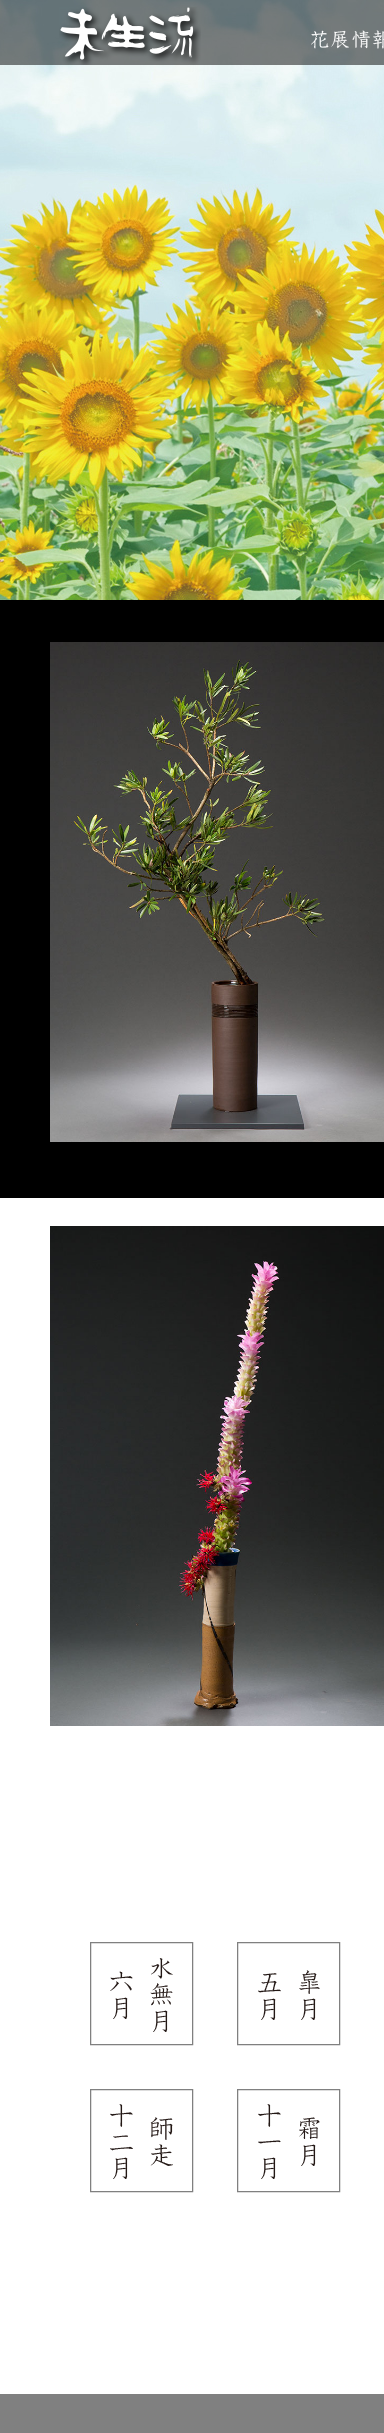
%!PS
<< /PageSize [384 2433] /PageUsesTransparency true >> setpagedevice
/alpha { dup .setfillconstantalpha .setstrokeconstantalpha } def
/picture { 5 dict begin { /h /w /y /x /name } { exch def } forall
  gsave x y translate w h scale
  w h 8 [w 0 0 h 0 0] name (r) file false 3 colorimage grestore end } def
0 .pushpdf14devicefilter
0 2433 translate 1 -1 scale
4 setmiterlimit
1 setgray
0 0 384 2433 rectfill
(img1.rgb) 0 0 384 600 picture
0 setgray
0 600 384 598 rectfill
(img2.rgb) 50 642 334 500 picture
(img3.rgb) 50 1226 334 500 picture
0.502 setgray
90.5 1942.5 102 102 rectstroke
(img4.rgb) 110 1958 63 74 picture
237.5 1942.5 102 102 rectstroke
(img5.rgb) 258 1970 62 50 picture
90.5 2089.5 102 102 rectstroke
(img6.rgb) 110 2104 63 75 picture
237.5 2089.5 102 102 rectstroke
(img7.rgb) 258 2104 62 75 picture
0.5 alpha
0 setgray
0 0 384 65 rectfill
1 alpha
(img8.rgb) 59 7 142 58 picture
(img9.rgb) 311 30 73 19 picture
0.502 setgray
0 2394 384 39 rectfill
.poppdf14devicefilter showpage
